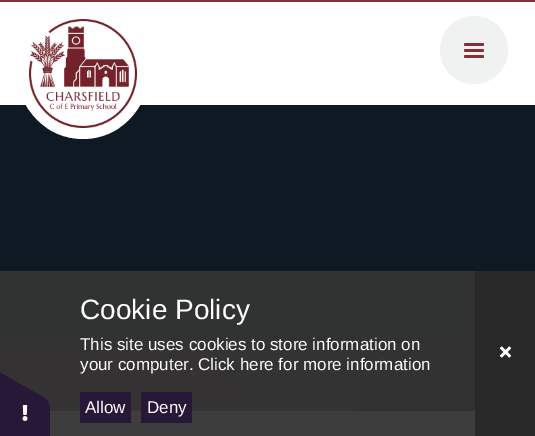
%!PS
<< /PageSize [535 436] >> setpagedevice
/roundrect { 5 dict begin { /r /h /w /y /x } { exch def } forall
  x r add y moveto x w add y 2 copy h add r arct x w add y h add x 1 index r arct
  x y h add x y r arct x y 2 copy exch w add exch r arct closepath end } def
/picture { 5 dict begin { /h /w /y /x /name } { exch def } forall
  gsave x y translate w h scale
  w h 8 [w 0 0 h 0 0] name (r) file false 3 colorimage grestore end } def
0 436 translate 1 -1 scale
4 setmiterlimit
0.239 setgray
0 0 535 436 rectfill
0.533 0.184 0.212 setrgbcolor
0 0 535 2 rectfill
1 setgray
0 2 535 103 rectfill
0.059 0.098 0.137 setrgbcolor
0 105 535 166 rectfill
1 setgray
18 8 130 131 65 roundrect fill
(img1.rgb) 29 19 108 109 picture
0.937 0.949 0.945 setrgbcolor
newpath 474 50 34 0 360 arc closepath fill
0.533 0.184 0.212 setrgbcolor
464 43 20 3 1.5 roundrect fill
464 49 20 3 1.5 roundrect fill
464 55 20 3 1.5 roundrect fill
0.192 0.196 0.196 setrgbcolor
0 271 475 69 rectfill
gsave newpath 0 340 moveto 475 340 lineto 475 411 lineto 0 411 lineto closepath clip newpath
<< /ShadingType 2 /ColorSpace /DeviceRGB /Coords [0 376 535 376] /Extend [true true] /Function << /FunctionType 3 /Domain [0 1] /Functions [<< /FunctionType 2 /Domain [0 1] /C0 [0.204 0.196 0.2] /C1 [0.204 0.2 0.204] /N 1 >> << /FunctionType 2 /Domain [0 1] /C0 [0.204 0.2 0.204] /C1 [0.2 0.196 0.196] /N 1 >>] /Bounds [0.5] /Encode [0 1 0 1] >> >> shfill grestore
(img2.rgb) 84 358 5 7 picture
(img3.rgb) 381 358 5 7 picture
(img4.rgb) 190 371 5 7 picture
0.157 0.094 0.22 setrgbcolor
newpath 50 409 moveto 50 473 lineto 50 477 48 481 46 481 curveto -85 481 lineto -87 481 -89 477 -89 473 curveto -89 409 lineto -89 404 -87 401 -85 401 curveto 46 401 lineto 48 401 50 404 50 409 curveto closepath fill
newpath -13 365 moveto 43 397 lineto 47 399 49 402 48 404 curveto -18 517 lineto -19 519 -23 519 -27 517 curveto -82 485 lineto -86 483 -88 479 -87 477 curveto -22 364 lineto -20 362 -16 363 -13 365 curveto closepath fill
(img5.rgb) 22 405 6 16 picture
/LiberationSans-Regular [28 0 0 -28 0 0] selectfont
1 setgray
80 319 moveto (Cookie Policy) show
/LiberationSans-Regular [17 0 0 -17 0 0] selectfont
80 350 moveto (This site uses cookies to store information on) show
80 370 moveto (your computer. Click here for more information) show
0.157 0.094 0.22 setrgbcolor
80 392 51 31 rectfill
1 setgray
85 413 moveto (Allow) show
0.157 0.094 0.22 setrgbcolor
141 392 51 31 rectfill
1 setgray
147 413 moveto (Deny) show
0.161 setgray
475 271 60 165 rectfill
(img6.rgb) 500 346 11 12 picture
showpage
